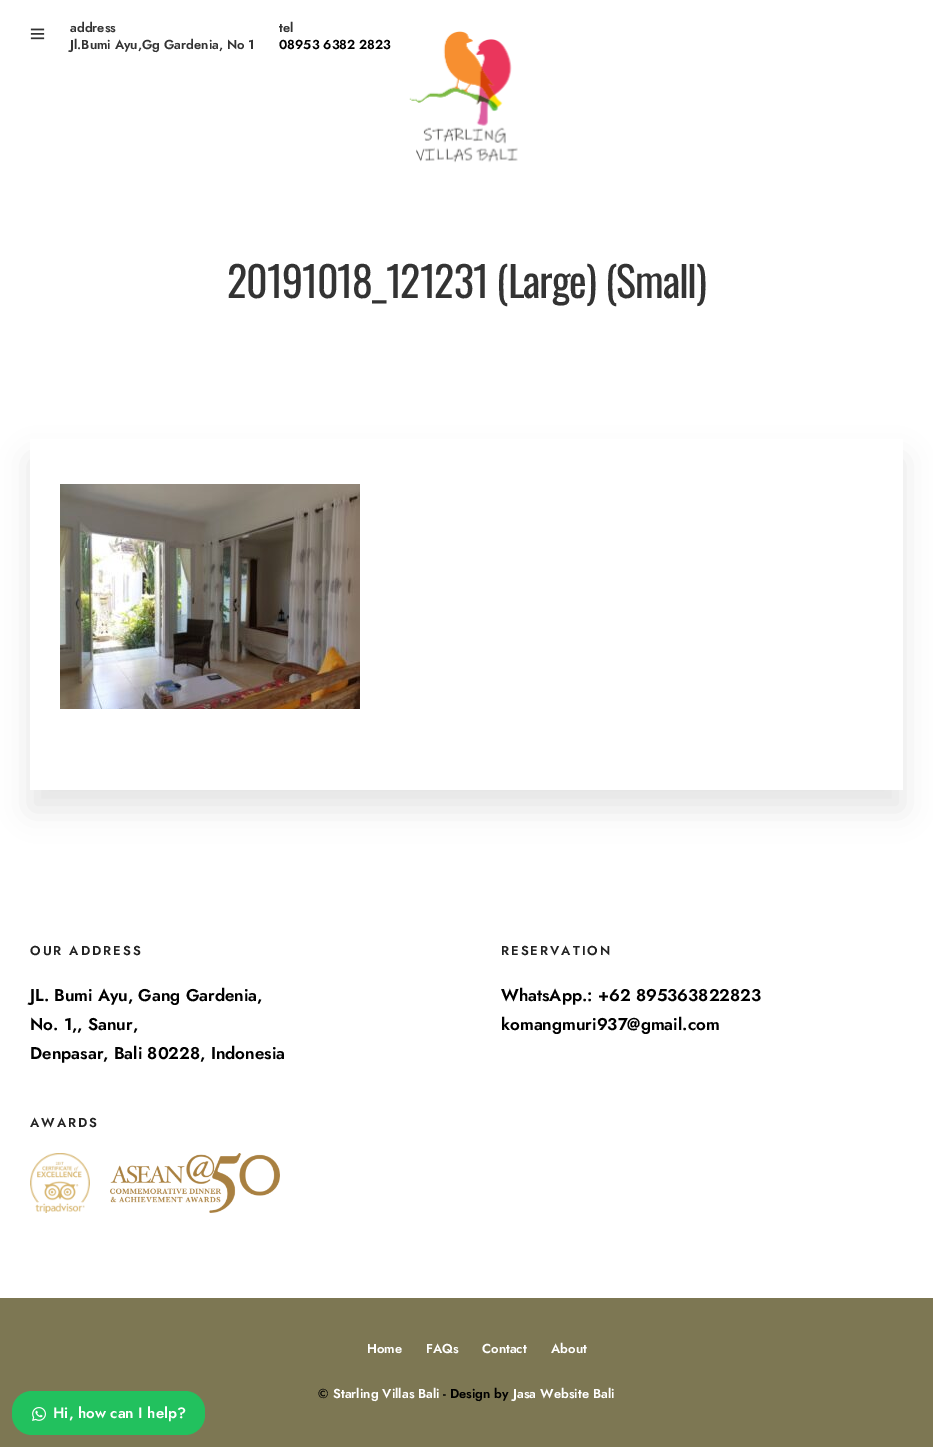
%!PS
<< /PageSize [933 1447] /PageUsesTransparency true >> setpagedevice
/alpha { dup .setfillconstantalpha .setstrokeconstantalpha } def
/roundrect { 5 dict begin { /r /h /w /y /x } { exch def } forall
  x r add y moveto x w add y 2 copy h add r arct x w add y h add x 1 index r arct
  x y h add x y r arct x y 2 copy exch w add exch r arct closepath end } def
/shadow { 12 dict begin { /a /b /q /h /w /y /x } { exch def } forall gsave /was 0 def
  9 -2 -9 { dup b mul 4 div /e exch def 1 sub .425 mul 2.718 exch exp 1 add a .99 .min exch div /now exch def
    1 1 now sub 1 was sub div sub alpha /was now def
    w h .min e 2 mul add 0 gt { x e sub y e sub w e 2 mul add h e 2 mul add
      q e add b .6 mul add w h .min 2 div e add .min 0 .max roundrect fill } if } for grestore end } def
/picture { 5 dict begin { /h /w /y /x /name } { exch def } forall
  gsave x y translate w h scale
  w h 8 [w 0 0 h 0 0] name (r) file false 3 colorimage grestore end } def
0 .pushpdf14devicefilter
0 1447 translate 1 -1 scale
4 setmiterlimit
1 setgray
0 0 933 1447 rectfill
(img1.rgb) 30 28 15 12 picture
/Jost-SemiBold [13 0 0 -13 0 0] selectfont
0.2 setgray
70 32 moveto (address) show
70 49 moveto (Jl.Bumi Ayu,Gg Gardenia, No 1) show
279 32 moveto (tel) show
0 setgray
279 49 moveto (08953 6382 2823) show
(img2.rgb) 409 31 109 132 picture
/Oswald-Regular [42 0 0 -42 0 0] selectfont
0.2 setgray
227 298 moveto -1 0 (20191018_121231 \(Large\) \(Small\)) ashow
gsave
newpath 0 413 moveto 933 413 lineto 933 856 lineto 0 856 lineto closepath 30 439 moveto 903 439 lineto 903 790 lineto 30 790 lineto closepath eoclip newpath
0.004 setgray
30 459 873 351 0 15 0.1 shadow
grestore
(img3.rgb) 60 484 300 225 picture
/Jost-SemiBold [13 0 0 -13 0 0] selectfont
0.133 setgray
30 955 moveto 2 0 (OUR ADDRESS) ashow
/Jost-SemiBold [17 0 0 -17 0 0] selectfont
0 setgray
30 1001 moveto (JL. Bumi Ayu, Gang Gardenia,) show
30 1030 moveto (No. 1,, Sanur,) show
30 1059 moveto (Denpasar, Bali 80228, Indonesia) show
/Jost-SemiBold [13 0 0 -13 0 0] selectfont
0.133 setgray
501 955 moveto 2 0 (RESERVATION) ashow
/Jost-SemiBold [17 0 0 -17 0 0] selectfont
0 setgray
501 1001 moveto (WhatsApp.: +62 895363822823) show
501 1030 moveto (komangmuri937@gmail.com) show
/Jost-SemiBold [13 0 0 -13 0 0] selectfont
0.133 setgray
30 1127 moveto 2 0 (AWARDS) ashow
(img4.rgb) 30 1153 60 60 picture
(img5.rgb) 110 1153 170 60 picture
0.49 0.467 0.325 setrgbcolor
0 1298 933 149 rectfill
1 setgray
367 1353 moveto (Home) show
426 1353 moveto (FAQs) show
482 1353 moveto (Contact) show
551 1353 moveto (About) show
0 setgray
318 1398 moveto (©) show
1 setgray
333 1398 moveto (Starling Villas Bali) show
0 setgray
443 1398 moveto (- Design by) show
1 setgray
513 1398 moveto (Jasa Website Bali) show
0.133 0.757 0.369 setrgbcolor
12 1391 193 44 20 roundrect fill
(img6.rgb) 32 1407 14 14 picture
/Jost-SemiBold [15 0 0 -15 0 0] selectfont
1 setgray
53 1418 moveto (Hi, how can I help?) show
.poppdf14devicefilter showpage
